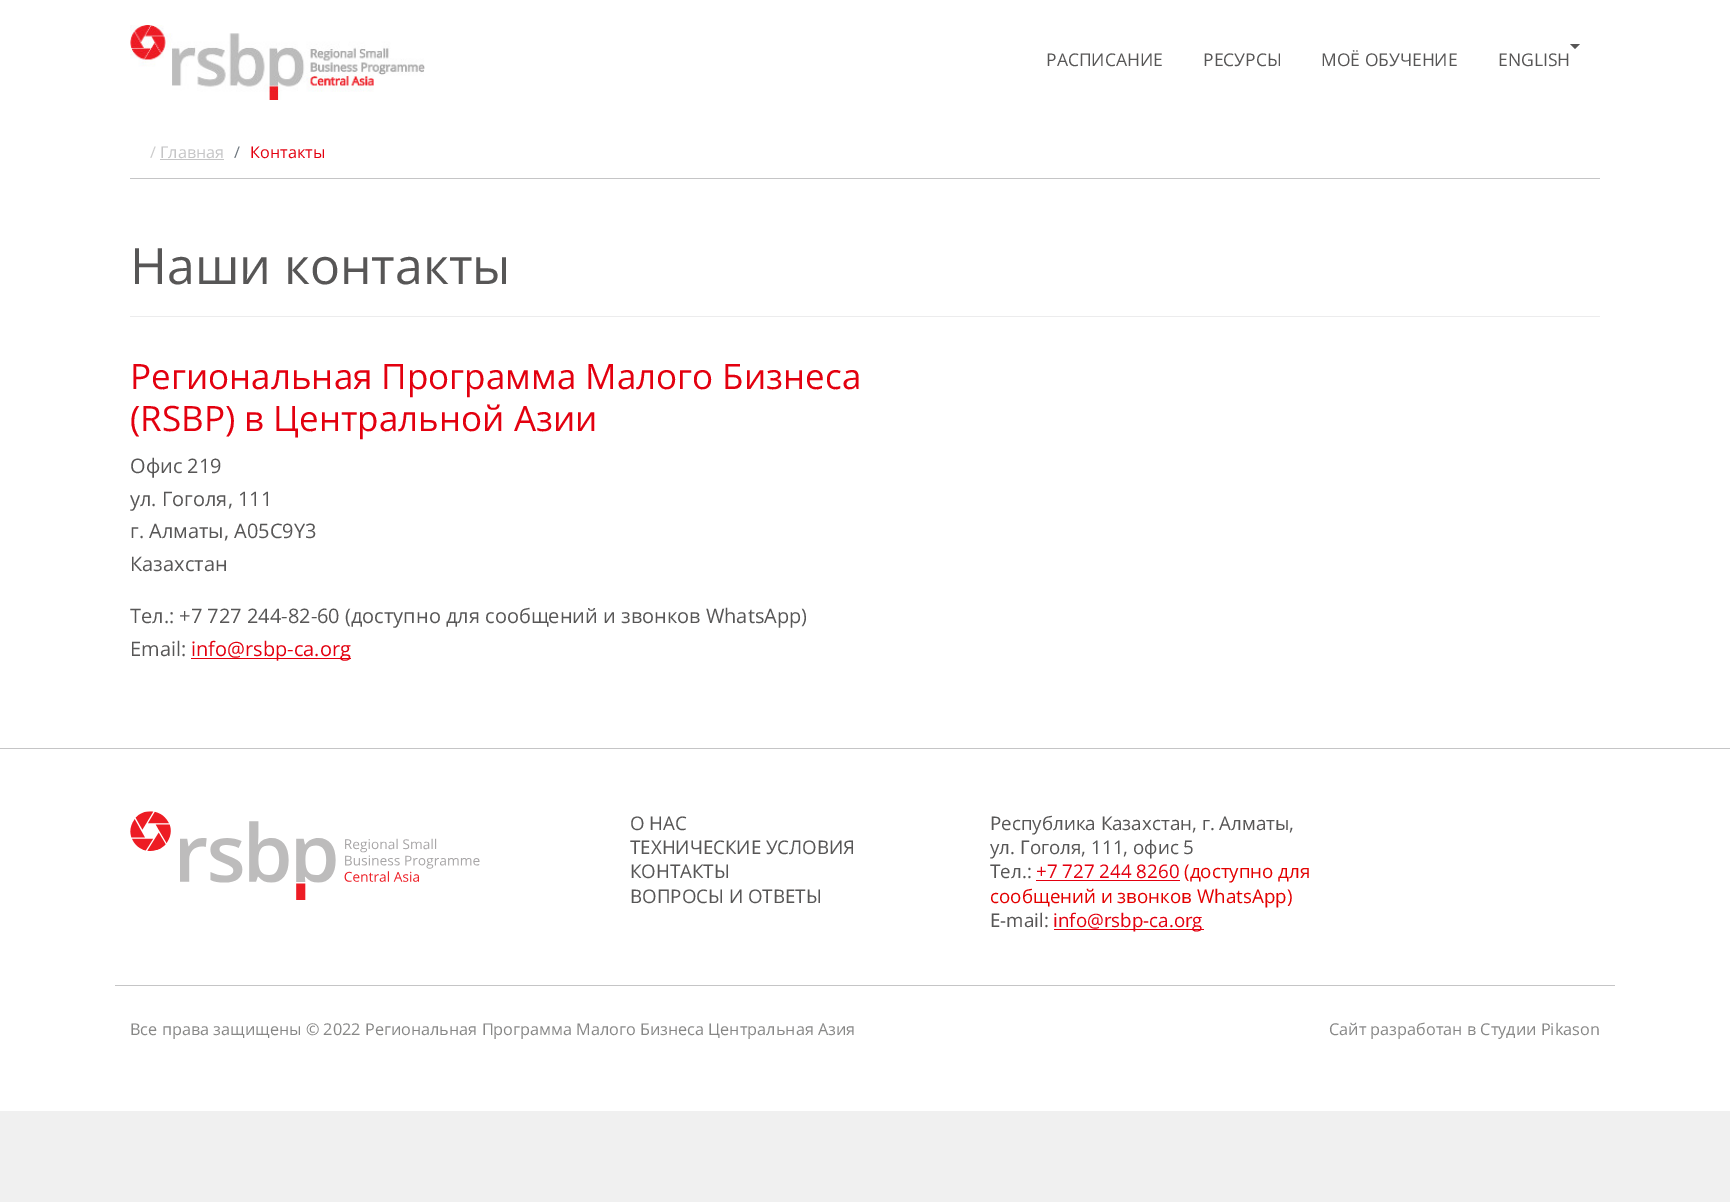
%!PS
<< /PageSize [1730 1202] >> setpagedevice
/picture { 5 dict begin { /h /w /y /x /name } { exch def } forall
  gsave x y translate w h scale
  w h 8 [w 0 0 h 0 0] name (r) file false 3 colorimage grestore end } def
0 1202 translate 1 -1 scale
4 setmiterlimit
0.941 setgray
0 0 1730 1202 rectfill
1 setgray
0 0 1730 1111 rectfill
(img1.rgb) 130 25 295 75 picture
/OpenSans-Regular [17.5 0 0 -17.5 0 0] selectfont
0.341 0.337 0.337 setrgbcolor
1046 66 moveto (РАСПИСАНИЕ) show
1203 66 moveto (РЕСУРСЫ) show
1321 66 moveto (МОЁ ОБУЧЕНИЕ) show
newpath 1570 44 moveto 1580 44 lineto 1575 49 lineto closepath fill
1498 66 moveto (ENGLISH) show
0.773 0.773 0.776 setrgbcolor
130 178 1470 1 rectfill
/OpenSans-Regular [16.25 0 0 -16.25 0 0] selectfont
0.8 setgray
150 158 moveto (/) show
0.773 0.773 0.776 setrgbcolor
160 158 moveto (Главная) show
160 159 64 1 rectfill
0.424 0.459 0.49 setrgbcolor
234 158 moveto (/) show
0.89 0 0.059 setrgbcolor
250 158 moveto (Контакты) show
0.925 0.925 0.929 setrgbcolor
130 316 1470 1 rectfill
/OpenSans-Regular [50 0 0 -50 0 0] selectfont
0.341 0.337 0.337 setrgbcolor
130 284 moveto (Наши контакты) show
/OpenSans-Regular [35 0 0 -35 0 0] selectfont
0.89 0 0.059 setrgbcolor
130 389 moveto (Региональная Программа Малого Бизнеса) show
130 431 moveto (\(RSBP\) в Центральной Азии) show
/OpenSans-Regular [20 0 0 -20 0 0] selectfont
0.341 0.337 0.337 setrgbcolor
130 473 moveto (Офис 219) show
130 506 moveto (ул. Гоголя, 111) show
130 538 moveto (г. Алматы, A05C9Y3) show
130 571 moveto (Казахстан) show
130 623 moveto (Тел.: +7 727 244-82-60 \(доступно для сообщений и звонков WhatsApp\)) show
130 656 moveto (Email:) show
0.89 0 0.059 setrgbcolor
191 658 160 1 rectfill
191 656 moveto (info@rsbp-ca.org) show
0.773 0.773 0.776 setrgbcolor
0 748 1730 1 rectfill
(img2.rgb) 130 811 350 89 picture
/OpenSans-Regular [18.75 0 0 -18.75 0 0] selectfont
0.341 0.337 0.337 setrgbcolor
630 830 moveto (О НАС) show
630 854 moveto (ТЕХНИЧЕСКИЕ УСЛОВИЯ) show
630 878 moveto (КОНТАКТЫ) show
630 903 moveto (ВОПРОСЫ И ОТВЕТЫ) show
990 830 moveto (Республика Казахстан, г. Алматы,) show
990 854 moveto (ул. Гоголя, 111, офис 5) show
990 878 moveto (Тел.:) show
0.89 0 0.059 setrgbcolor
1036 878 moveto (+7 727 244 8260) show
1036 880 144 1 rectfill
0.89 0 0 setrgbcolor
1184 878 moveto (\(доступно для) show
990 903 moveto (сообщений и звонков WhatsApp\)) show
0.341 0.337 0.337 setrgbcolor
990 927 moveto (E-mail:) show
0.89 0 0.059 setrgbcolor
1054 929 150 1 rectfill
1053 927 moveto (info@rsbp-ca.org) show
0.773 0.773 0.776 setrgbcolor
115 985 1500 1 rectfill
/OpenSans-Regular [16.25 0 0 -16.25 0 0] selectfont
0.529 0.529 0.525 setrgbcolor
130 1035 moveto (Все права защищены © 2022 Региональная Программа Малого Бизнеса Центральная Азия) show
1329 1035 moveto (Сайт разработан в Студии Pikason) show
showpage
